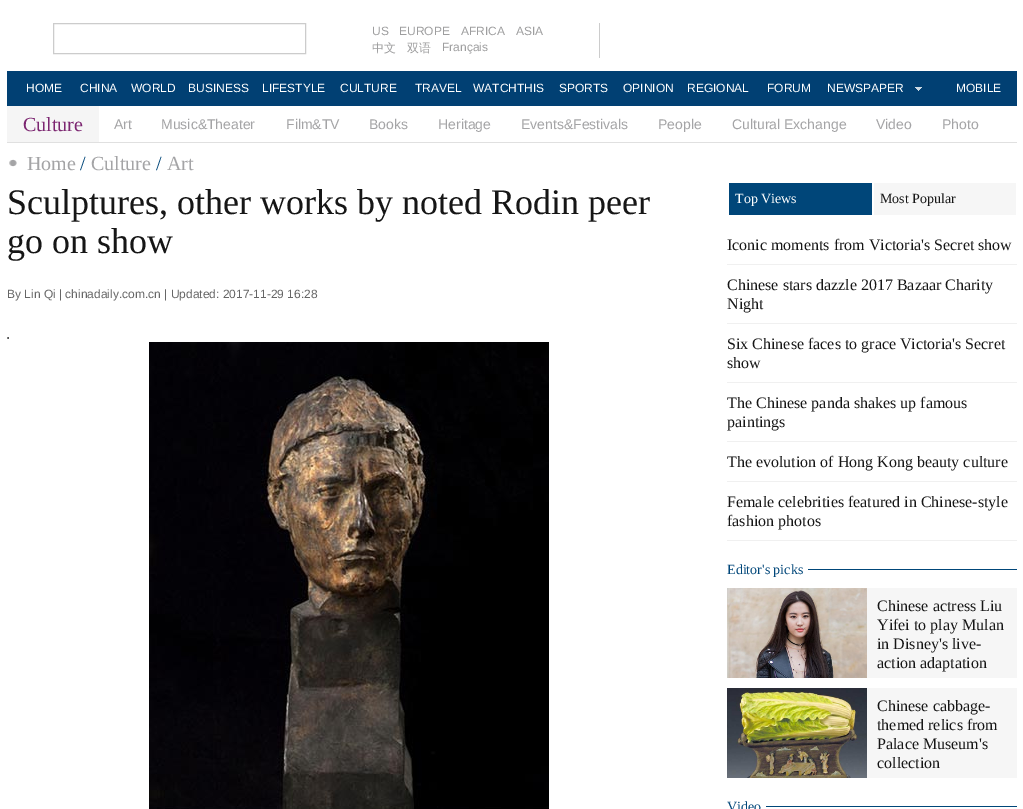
%!PS
<< /PageSize [1023 809] >> setpagedevice
/picture { 5 dict begin { /h /w /y /x /name } { exch def } forall
  gsave x y translate w h scale
  w h 8 [w 0 0 h 0 0] name (r) file false 3 colorimage grestore end } def
0 809 translate 1 -1 scale
4 setmiterlimit
1 setgray
0 0 1023 809 rectfill
0.8 setgray
53.5 23.5 252 30 rectstroke
599 23 1 35 rectfill
/LiberationSans-Regular [12 0 0 -12 0 0] selectfont
0.62 0.62 0.624 setrgbcolor
372 35 moveto (US) show
399 35 moveto (EUROPE) show
461 35 moveto (AFRICA) show
516 35 moveto (ASIA) show
/WenQuanYiZenHei-Medium [12 0 0 -12 0 0] selectfont
372 52 moveto (中文) show
407 52 moveto (双语) show
/LiberationSans-Regular [12 0 0 -12 0 0] selectfont
442 51 moveto (Français) show
0.004 0.251 0.451 setrgbcolor
7 71 1010 35 rectfill
1 setgray
26 92 moveto (HOME) show
80 92 moveto (CHINA) show
131 92 moveto (WORLD) show
188 92 moveto (BUSINESS) show
262 92 moveto (LIFESTYLE) show
340 92 moveto (CULTURE) show
415 92 moveto (TRAVEL) show
473 92 moveto (WATCHTHIS) show
559 92 moveto (SPORTS) show
623 92 moveto (OPINION) show
687 92 moveto (REGIONAL) show
767 92 moveto (FORUM) show
(img1.rgb) 915 87 7 4 picture
827 92 moveto (NEWSPAPER) show
956 92 moveto (MOBILE) show
0.878 setgray
7 142 1010 1 rectfill
0.961 setgray
7 106 92 36 rectfill
/LiberationSerif-Regular [20 0 0 -20 0 0] selectfont
0.486 0.149 0.443 setrgbcolor
23 131 moveto (Culture) show
/LiberationSans-Regular [14 0 0 -14 0 0] selectfont
0.643 0.643 0.651 setrgbcolor
114 129 moveto (Art) show
161 129 moveto (Music&Theater) show
286 129 moveto (Film&TV) show
369 129 moveto (Books) show
438 129 moveto (Heritage) show
521 129 moveto (Events&Festivals) show
658 129 moveto (People) show
732 129 moveto (Cultural Exchange) show
876 129 moveto (Video) show
942 129 moveto (Photo) show
(img2.rgb) 9 159 8 8 picture
/LiberationSerif-Regular [20 0 0 -20 0 0] selectfont
27 170 moveto (Home) show
0 0.275 0.475 setrgbcolor
80 170 moveto (/) show
0.643 0.643 0.651 setrgbcolor
91 170 moveto (Culture) show
0 0.275 0.475 setrgbcolor
156 170 moveto (/) show
0.643 0.643 0.651 setrgbcolor
167 170 moveto (Art) show
/LiberationSerif-Regular [36 0 0 -36 0 0] selectfont
0.086 setgray
7 214 moveto (Sculptures, other works by noted Rodin peer) show
7 253 moveto (go on show) show
/LiberationSans-Regular [12 0 0 -12 0 0] selectfont
0.4 setgray
7 298 moveto (By Lin Qi | chinadaily.com.cn | Updated: 2017-11-29 16:28) show
0.333 setgray
8 337 1 2 rectfill
7 338 2 1 rectfill
0.502 setgray
7 337 1 2 rectfill
(img3.rgb) 149 342 400 467 picture
0 0.275 0.475 setrgbcolor
729 183 143 32 rectfill
/LiberationSerif-Regular [14 0 0 -14 0 0] selectfont
1 setgray
735 203 moveto (Top Views) show
0.965 setgray
874 183 142 32 rectfill
0.086 setgray
880 203 moveto (Most Popular) show
0.941 setgray
727 264 290 1 rectfill
/LiberationSerif-Regular [16 0 0 -16 0 0] selectfont
0.086 setgray
727 250 moveto (Iconic moments from Victoria's Secret show) show
0.941 setgray
727 323 290 1 rectfill
0.086 setgray
727 290 moveto (Chinese stars dazzle 2017 Bazaar Charity) show
727 309 moveto (Night) show
0.941 setgray
727 382 290 1 rectfill
0.086 setgray
727 349 moveto (Six Chinese faces to grace Victoria's Secret) show
727 368 moveto (show) show
0.941 setgray
727 441 290 1 rectfill
0.086 setgray
727 408 moveto (The Chinese panda shakes up famous) show
727 427 moveto (paintings) show
0.941 setgray
727 481 290 1 rectfill
0.086 setgray
727 467 moveto (The evolution of Hong Kong beauty culture) show
0.941 setgray
727 540 290 1 rectfill
0.086 setgray
727 507 moveto (Female celebrities featured in Chinese-style) show
727 526 moveto (fashion photos) show
0 0.275 0.475 setrgbcolor
808 569 209 1 rectfill
/LiberationSerif-Regular [14 0 0 -14 0 0] selectfont
727 574 moveto (Editor's picks) show
0.965 setgray
867 588 150 90 rectfill
(img4.rgb) 727 588 140 90 picture
/LiberationSerif-Regular [16 0 0 -16 0 0] selectfont
0.086 setgray
877 611 moveto (Chinese actress Liu) show
877 630 moveto (Yifei to play Mulan) show
877 649 moveto (in Disney's live-) show
877 668 moveto (action adaptation) show
0.965 setgray
867 688 150 90 rectfill
(img5.rgb) 727 688 140 90 picture
0.086 setgray
877 711 moveto (Chinese cabbage-) show
877 730 moveto (themed relics from) show
877 749 moveto (Palace Museum's) show
877 768 moveto (collection) show
0 0.275 0.475 setrgbcolor
766 806 251 1 rectfill
/LiberationSerif-Regular [14 0 0 -14 0 0] selectfont
727 811 moveto (Video) show
showpage
